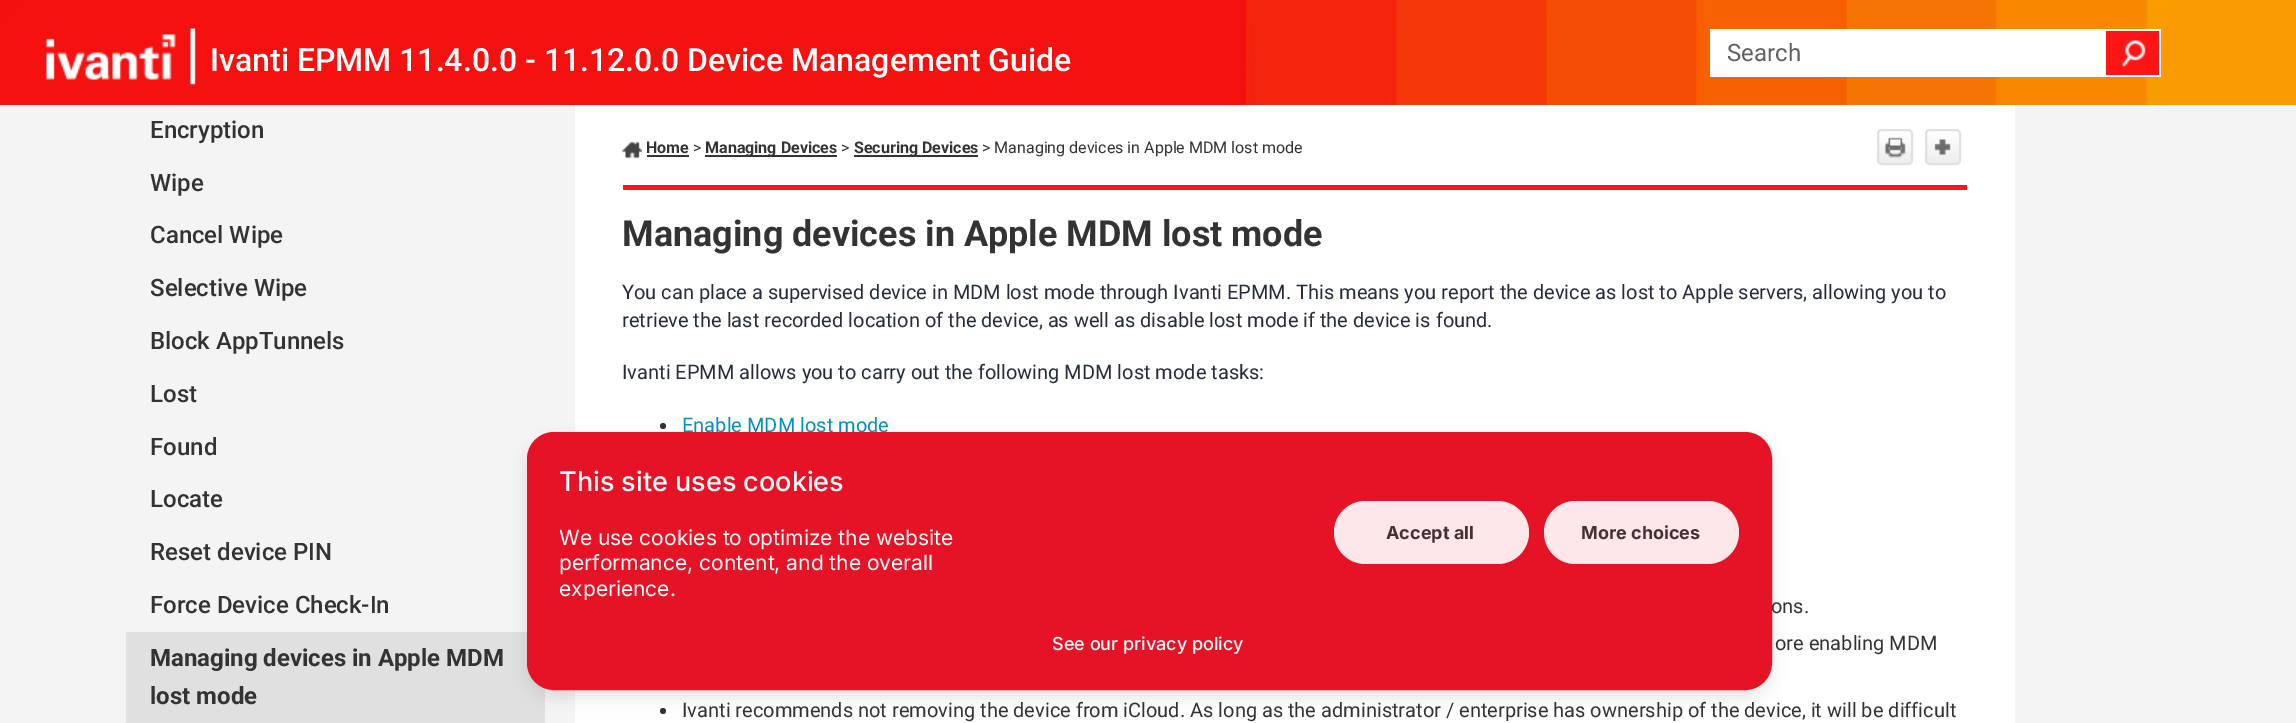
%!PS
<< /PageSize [2296 723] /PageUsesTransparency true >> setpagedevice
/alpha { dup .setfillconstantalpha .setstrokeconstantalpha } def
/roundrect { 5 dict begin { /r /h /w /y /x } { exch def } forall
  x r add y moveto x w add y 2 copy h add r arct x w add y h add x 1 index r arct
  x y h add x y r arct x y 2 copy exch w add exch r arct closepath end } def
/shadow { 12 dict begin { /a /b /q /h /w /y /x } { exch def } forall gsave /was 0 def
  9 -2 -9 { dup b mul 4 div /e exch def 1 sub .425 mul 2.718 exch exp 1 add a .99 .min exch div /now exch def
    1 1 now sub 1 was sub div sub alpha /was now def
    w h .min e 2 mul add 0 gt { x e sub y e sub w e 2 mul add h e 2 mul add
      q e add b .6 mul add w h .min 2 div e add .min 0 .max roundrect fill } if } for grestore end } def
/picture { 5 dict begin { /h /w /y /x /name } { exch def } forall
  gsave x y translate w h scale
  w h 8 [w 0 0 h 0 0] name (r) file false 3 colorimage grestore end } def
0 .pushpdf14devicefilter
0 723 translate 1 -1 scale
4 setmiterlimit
0.957 setgray
0 0 2296 723 rectfill
(img1.rgb) 0 0 2296 105 picture
(img2.rgb) 46 28 150 57 picture
1 setgray
1710 29 396 48 rectfill
/Roboto-Regular [24 0 0 -24 0 0] selectfont
0.373 setgray
1727 61 moveto (Search) show
1 0.082 0.082 setrgbcolor
2106 31 53 44 rectfill
(img3.rgb) 2122 40 24 27 picture
1 setgray
2106 29 54 2 rectfill
2159 29 2 48 rectfill
2106 75 54 2 rectfill
575 105 1440 618 rectfill
/Roboto-Medium [32 0 0 -32 0 0] selectfont
210 71 moveto (Ivanti EPMM 11.4.0.0 - 11.12.0.0 Device Management Guide) show
1 0.082 0.082 setrgbcolor
623 185 1344 5 rectfill
(img4.rgb) 622 141 20 18 picture
/Roboto-Bold [16 0 0 -16 0 0] selectfont
0.2 setgray
646 153 moveto (Home) show
647 155 42 2 rectfill
/Roboto-Regular [16 0 0 -16 0 0] selectfont
693 153 moveto (>) show
705 155 132 2 rectfill
/Roboto-Bold [16 0 0 -16 0 0] selectfont
705 153 moveto (Managing Devices) show
/Roboto-Regular [16 0 0 -16 0 0] selectfont
841 153 moveto (>) show
854 155 124 2 rectfill
/Roboto-Bold [16 0 0 -16 0 0] selectfont
854 153 moveto (Securing Devices) show
/Roboto-Regular [16 0 0 -16 0 0] selectfont
982 153 moveto (> Managing devices in Apple MDM lost mode) show
(img5.rgb) 1876 129 37 35 picture
0.882 setgray
2 setlinewidth
1878 130 34 34 4 roundrect stroke
(img6.rgb) 1924 129 37 35 picture
1926 130 34 34 4 roundrect stroke
/Roboto-Bold [36 0 0 -36 0 0] selectfont
0.2 setgray
622 246 moveto (Managing devices in Apple MDM lost mode) show
/Roboto-Regular [20 0 0 -20 0 0] selectfont
0.145 0.176 0.231 setrgbcolor
622 299 moveto (You can place a supervised device in MDM lost mode through Ivanti EPMM. This means you report the device as lost to Apple servers, allowing you to) show
622 327 moveto (retrieve the last recorded location of the device, as well as disable lost mode if the device is found.) show
622 379 moveto (Ivanti EPMM allows you to carry out the following MDM lost mode tasks:) show
0.2 setgray
newpath 663 426 3 0 360 arc closepath fill
0 0.573 0.737 setrgbcolor
682 432 moveto (Enable MDM lost mode) show
0.2 setgray
1771 613 moveto (ons.) show
1775 650 moveto (ore enabling MDM) show
newpath 663 711 3 0 360 arc closepath fill
682 717 moveto (Ivanti recommends not removing the device from iCloud. As long as the administrator / enterprise has ownership of the device, it will be difficult) show
/Roboto-Medium [24 0 0 -24 0 0] selectfont
150 138 moveto (Encryption) show
150 191 moveto (Wipe) show
150 243 moveto (Cancel Wipe) show
150 296 moveto (Selective Wipe) show
150 349 moveto (Block AppTunnels) show
150 402 moveto (Lost) show
150 455 moveto (Found) show
150 507 moveto (Locate) show
150 560 moveto (Reset device PIN) show
150 613 moveto (Force Device Check-In) show
0.878 setgray
126 632 419 91 rectfill
/Roboto-Bold [24 0 0 -24 0 0] selectfont
0.2 setgray
150 666 moveto (Managing devices in Apple MDM) show
150 704 moveto (lost mode) show
0 setgray
527 440 1245 258 27 7.5 0.1 shadow
0.902 0.071 0.149 setrgbcolor
528 433 1243 256 26 roundrect gsave fill grestore
stroke
/Inter-Medium [27 0 0 -27 0 0] selectfont
1 setgray
559 491 moveto (This site uses cookies) show
gsave
560 465 1179 135 rectclip
/Inter-Regular [21 0 0 -21 0 0] selectfont
559 545 moveto (We use cookies to optimize the website) show
grestore
/Inter-Regular [21 0 0 -21 0 0] selectfont
559 570 moveto (performance, content, and the overall) show
gsave
560 465 1179 135 rectclip
559 596 moveto (experience.) show
grestore
0.992 0.906 0.914 setrgbcolor
1334 501 195 63 31.5 roundrect fill
/Inter-Bold [18 0 0 -18 0 0] selectfont
0.271 0.188 0.196 setrgbcolor
1386 539 moveto (Accept all) show
0.992 0.906 0.914 setrgbcolor
1544 501 195 63 31.5 roundrect fill
0.271 0.188 0.196 setrgbcolor
1581 539 moveto (More choices) show
/Inter-Medium [18 0 0 -18 0 0] selectfont
1 setgray
1052 650 moveto (See our privacy policy) show
.poppdf14devicefilter showpage
